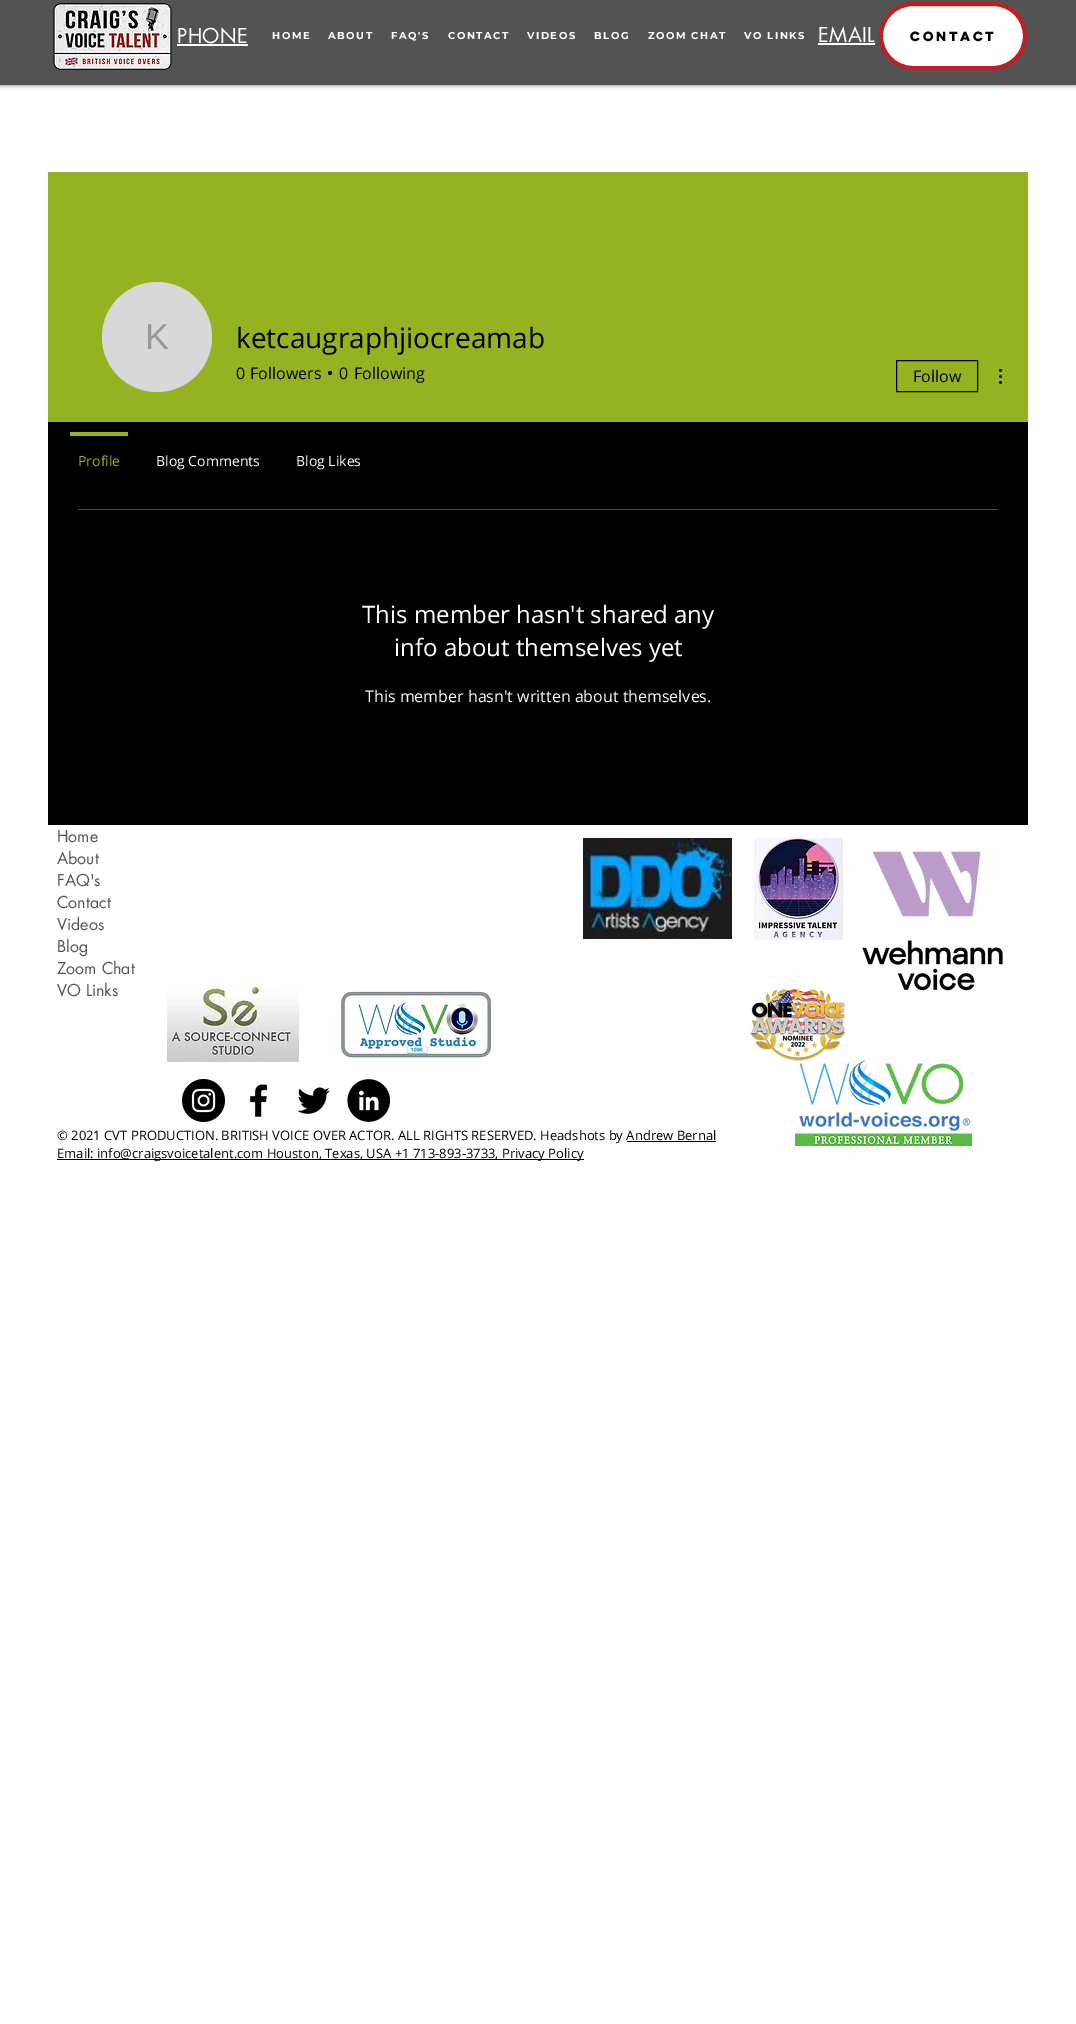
%!PS
<< /PageSize [1076 2024] /PageUsesTransparency true >> setpagedevice
/alpha { dup .setfillconstantalpha .setstrokeconstantalpha } def
/roundrect { 5 dict begin { /r /h /w /y /x } { exch def } forall
  x r add y moveto x w add y 2 copy h add r arct x w add y h add x 1 index r arct
  x y h add x y r arct x y 2 copy exch w add exch r arct closepath end } def
/shadow { 12 dict begin { /a /b /q /h /w /y /x } { exch def } forall gsave /was 0 def
  9 -2 -9 { dup b mul 4 div /e exch def 1 sub .425 mul 2.718 exch exp 1 add a .99 .min exch div /now exch def
    1 1 now sub 1 was sub div sub alpha /was now def
    w h .min e 2 mul add 0 gt { x e sub y e sub w e 2 mul add h e 2 mul add
      q e add b .6 mul add w h .min 2 div e add .min 0 .max roundrect fill } if } for grestore end } def
/picture { 5 dict begin { /h /w /y /x /name } { exch def } forall
  gsave x y translate w h scale
  w h 8 [w 0 0 h 0 0] name (r) file false 3 colorimage grestore end } def
0 .pushpdf14devicefilter
0 2024 translate 1 -1 scale
4 setmiterlimit
1 setgray
0 0 1076 2024 rectfill
0 setgray
0 0 1076 85 0 2.5 0.5 shadow
0.325 setgray
0 0 1076 85 rectfill
(img1.rgb) 53 3 119 67 picture
/futura-Regular [20 0 0 -20 0 0] selectfont
1 setgray
177 43 moveto 0.5 0 (PHONE) ashow
177 44 71 2 rectfill
/Montserrat-Bold [10 0 0 -10 0 0] selectfont
272 39 moveto 1.5 0 (HOME) ashow
328 39 moveto 1.5 0 (ABOUT) ashow
391 39 moveto 1.5 0 (FAQ'S) ashow
448 39 moveto 1.5 0 (CONTACT) ashow
527 39 moveto 1.5 0 (VIDEOS) ashow
594 39 moveto 1.5 0 (BLOG) ashow
648 39 moveto 1.5 0 (ZOOM CHAT) ashow
744 39 moveto 1.5 0 (VO LINKS) ashow
/futura-Regular [20 0 0 -20 0 0] selectfont
818 42 moveto 0.5 0 (EMAIL) ashow
818 43 57 2 rectfill
881 4 144 64 32 roundrect gsave fill grestore
0.729 0.125 0.141 setrgbcolor
4 setlinewidth
stroke
/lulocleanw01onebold-Bold [12 0 0 -12 0 0] selectfont
0 setgray
910 41 moveto (Contact) show
0.584 0.698 0.125 setrgbcolor
48 172 980 250 rectfill
0.847 setgray
newpath 157 337 55 0 360 arc closepath fill
/LiberationSans-Regular [36 0 0 -36 0 0] selectfont
0.592 setgray
145 349 moveto (K) show
/OpenSans-Regular [28 0 0 -28 0 0] selectfont
0 setgray
236 348 moveto (ketcaugraphjiocreamab) show
/OpenSans-Regular [16 0 0 -16 0 0] selectfont
236 379 moveto (0) show
250 379 moveto (Followers) show
newpath 330 373 2 0 360 arc closepath fill
339 379 moveto (0) show
354 379 moveto (Following) show
1 setlinewidth
896.5 360.5 81 31 rectstroke
913 382 moveto (Follow) show
(img2.rgb) 999 369 3 15 picture
48 422 980 403 rectfill
0.584 0.698 0.125 setrgbcolor
70 432 58 4 rectfill
/OpenSans-Regular [14 0 0 -14 0 0] selectfont
78 466 moveto (Profile) show
1 setgray
156 466 moveto (Blog Comments) show
296 466 moveto (Blog Likes) show
0.302 setgray
78 509 920 1 rectfill
/OpenSans-Regular [24 0 0 -24 0 0] selectfont
1 setgray
362 623 moveto (This member hasn't shared any) show
394 656 moveto (info about themselves yet) show
/OpenSans-Regular [16 0 0 -16 0 0] selectfont
365 702 moveto (This member hasn't written about themselves.) show
/futura-Regular [16 0 0 -16 0 0] selectfont
0.333 0.322 0.322 setrgbcolor
57 842 moveto (Home) show
57 864 moveto (About) show
57 886 moveto (FAQ's) show
57 908 moveto (Contact) show
57 930 moveto (Videos) show
57 952 moveto (Blog) show
57 974 moveto (Zoom Chat) show
57 996 moveto (VO Links) show
(img3.rgb) 583 838 149 101 picture
(img4.rgb) 754 838 89 102 picture
(img5.rgb) 862 851 141 140 picture
(img6.rgb) 167 986 132 76 picture
(img7.rgb) 341 991 150 67 picture
(img13.rgb) 795 1060 177 86 picture
(img8.rgb) 750 988 96 73 picture
(img9.rgb) 182 1079 43 43 picture
(img10.rgb) 250 1084 18 33 picture
(img11.rgb) 297 1087 33 27 picture
(img12.rgb) 347 1079 43 43 picture
/OpenSans-Regular [13 0 0 -13 0 0] selectfont
0 setgray
57 1140 moveto (© 2021 CVT PRODUCTION. BRITISH VOICE OVER ACTOR. ALL RIGHTS RESERVED. Headshots by Andrew Bernal) show
627 1141 89 1 rectfill
57 1159 527 1 rectfill
57 1158 moveto (Email: info@craigsvoicetalent.com Houston, Texas, USA +1 713-893-3733, Privacy Policy) show
.poppdf14devicefilter showpage
